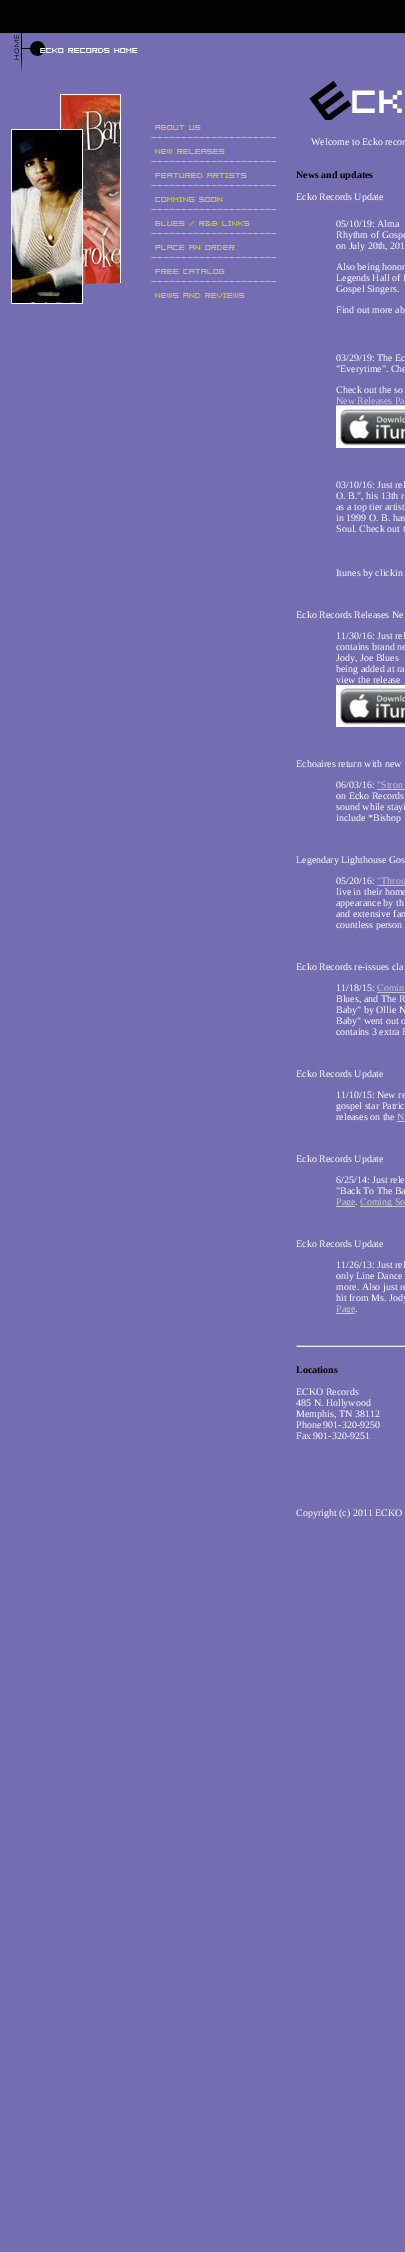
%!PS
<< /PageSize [405 2252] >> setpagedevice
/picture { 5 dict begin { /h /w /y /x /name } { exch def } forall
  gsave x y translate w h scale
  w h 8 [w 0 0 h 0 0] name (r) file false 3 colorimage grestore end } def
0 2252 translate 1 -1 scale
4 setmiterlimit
1 setgray
0 0 405 2252 rectfill
(img1.rgb) 0 0 405 2252 picture
(img2.rgb) 14 33 124 42 picture
(img3.rgb) 11 94 110 210 picture
(img4.rgb) 151 125 126 13 picture
(img5.rgb) 151 149 126 13 picture
(img6.rgb) 151 173 126 13 picture
(img7.rgb) 151 197 126 13 picture
(img8.rgb) 151 221 126 13 picture
(img9.rgb) 151 245 126 13 picture
(img10.rgb) 151 269 126 13 picture
(img11.rgb) 155 293 90 5 picture
(img12.rgb) 309 80 93 40 picture
/LiberationSerif-Regular [10 0 0 -10 0 0] selectfont
311 145 moveto (Welcome to Ecko recor) show
/LiberationSerif-Bold [10 0 0 -10 0 0] selectfont
0 setgray
296 178 moveto (News and updates) show
/LiberationSerif-Regular [10 0 0 -10 0 0] selectfont
1 setgray
296 200 moveto (Ecko Records Update) show
336 227 moveto (05/10/19: Alma) show
336 238 moveto (Rhythm of Gospe) show
336 249 moveto (on July 20th, 201) show
336 270 moveto (Also being honor) show
336 281 moveto (Legends Hall of F) show
336 292 moveto (Gospel Singers.) show
336 313 moveto (Find out more ab) show
336 361 moveto (03/29/19: The Ec) show
336 372 moveto ("Everytime". Che) show
336 393 moveto (Check out the so) show
0.8 setgray
336 404 moveto (New Releases Pa) show
336 405 69 1 rectfill
(img13.rgb) 336 406 69 42 picture
1 setgray
336 488 moveto (03/10/16: Just rel) show
336 499 moveto (O. B.", his 13th r) show
336 510 moveto (as a top tier artist) show
336 521 moveto (in 1999 O. B. has) show
336 532 moveto (Soul. Check out t) show
336 576 moveto (Itunes by clickin) show
296 618 moveto (Ecko Records Releases Ne) show
336 639 moveto (11/30/16: Just rel) show
336 650 moveto (contains brand ne) show
336 661 moveto (Jody, Joe Blues) show
336 672 moveto (being added at ra) show
336 683 moveto (view the release) show
(img13.rgb) 336 685 69 42 picture
296 767 moveto (Echoaires return with new) show
336 788 moveto (06/03/16:) show
0.8 setgray
377 788 moveto ("Stron) show
377 789 28 1 rectfill
1 setgray
336 799 moveto (on Ecko Records) show
336 810 moveto (sound while stayi) show
336 821 moveto (include *Bishop) show
296 863 moveto (Legendary Lighthouse Gos) show
336 884 moveto (05/20/16:) show
0.8 setgray
377 884 moveto ("Throu) show
377 885 28 1 rectfill
1 setgray
336 895 moveto (live in their home) show
336 906 moveto (appearance by th) show
336 917 moveto (and extensive fan) show
336 928 moveto (countless person) show
296 970 moveto (Ecko Records re-issues cla) show
336 991 moveto (11/18/15:) show
0.8 setgray
377 991 moveto (Comin) show
377 992 28 1 rectfill
1 setgray
336 1002 moveto (Blues, and The R) show
336 1013 moveto (Baby" by Ollie N) show
336 1024 moveto (Baby" went out o) show
336 1035 moveto (contains 3 extra B) show
296 1077 moveto (Ecko Records Update) show
336 1098 moveto (11/10/15: New re) show
336 1109 moveto (gospel star Patric) show
336 1120 moveto (releases on the) show
0.8 setgray
397 1120 moveto (N) show
397 1121 8 1 rectfill
1 setgray
296 1162 moveto (Ecko Records Update) show
336 1183 moveto (6/25/14: Just rele) show
336 1194 moveto ("Back To The Ba) show
0.8 setgray
336 1206 19 1 rectfill
336 1205 moveto (Page) show
1 setgray
355 1205 moveto (.) show
0.8 setgray
360 1206 45 1 rectfill
360 1205 moveto (Coming So) show
1 setgray
296 1247 moveto (Ecko Records Update) show
336 1268 moveto (11/26/13: Just rel) show
336 1279 moveto (only Line Dance) show
336 1290 moveto (more. Also just re) show
336 1301 moveto (hit from Ms. Jody) show
0.8 setgray
336 1313 19 1 rectfill
336 1312 moveto (Page) show
1 setgray
355 1312 moveto (.) show
0.624 setgray
296 1345 109 1 rectfill
0.933 setgray
296 1346 109 1 rectfill
0.624 setgray
296 1345 1 2 rectfill
/LiberationSerif-Bold [10 0 0 -10 0 0] selectfont
0 setgray
296 1373 moveto (Locations) show
/LiberationSerif-Regular [10 0 0 -10 0 0] selectfont
1 setgray
296 1395 moveto (ECKO Records) show
296 1406 moveto (485 N. Hollywood) show
296 1417 moveto (Memphis, TN 38112) show
296 1428 moveto (Phone 901-320-9250) show
296 1439 moveto (Fax 901-320-9251) show
296 1516 moveto (Copyright \(c\) 2011 ECKO) show
showpage
